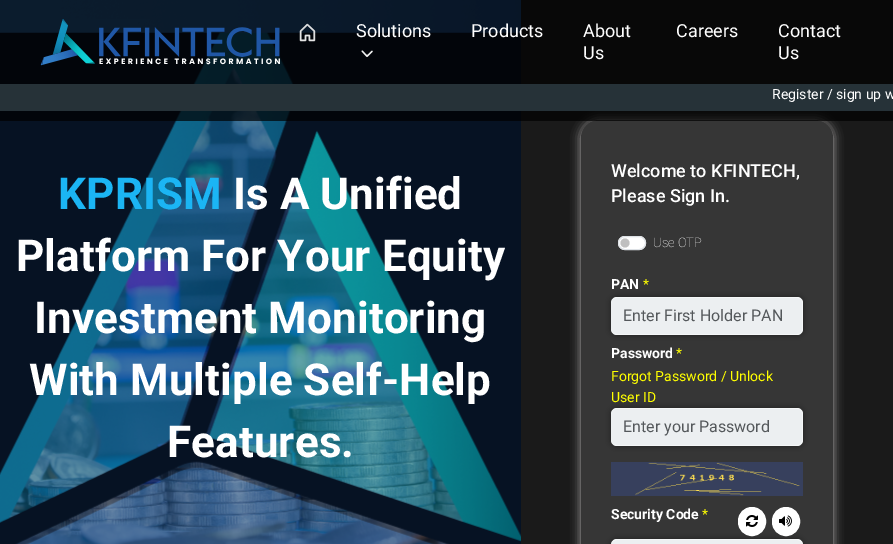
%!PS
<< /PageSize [893 544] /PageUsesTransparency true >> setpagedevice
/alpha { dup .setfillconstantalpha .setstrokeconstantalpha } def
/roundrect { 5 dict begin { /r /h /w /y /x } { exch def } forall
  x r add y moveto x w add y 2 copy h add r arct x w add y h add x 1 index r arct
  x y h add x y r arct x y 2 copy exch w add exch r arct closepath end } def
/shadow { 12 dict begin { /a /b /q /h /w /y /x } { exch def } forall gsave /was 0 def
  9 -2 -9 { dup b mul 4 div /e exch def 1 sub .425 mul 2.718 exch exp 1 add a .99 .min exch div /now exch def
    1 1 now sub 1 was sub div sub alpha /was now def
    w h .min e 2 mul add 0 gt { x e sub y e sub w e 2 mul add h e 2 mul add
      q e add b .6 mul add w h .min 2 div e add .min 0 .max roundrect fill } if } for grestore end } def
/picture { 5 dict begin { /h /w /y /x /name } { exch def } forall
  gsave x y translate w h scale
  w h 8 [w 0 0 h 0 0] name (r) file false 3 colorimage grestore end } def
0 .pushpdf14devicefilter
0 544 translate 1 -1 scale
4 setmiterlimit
0.102 setgray
0 0 893 544 rectfill
(img4.rgb) 0 0 521 544 picture
0.702 0.69 0.69 setrgbcolor
581 120 252 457 18 5 1 shadow
0.212 setgray
581 120 252 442 18 roundrect fill
0.7 alpha
0 setgray
0 0 893 121 rectfill
1 alpha
(img1.rgb) 40 19 240 47 picture
(img2.rgb) 299 23 17 19 picture
/Roboto-Regular [18 0 0 -18 0 0] selectfont
1 setgray
356 37 moveto (Solutions) show
(img3.rgb) 361 50 12 7 picture
471 37 moveto (Products) show
583 37 moveto (About) show
583 59 moveto (Us) show
676 37 moveto (Careers) show
778 37 moveto (Contact) show
778 59 moveto (Us) show
0.149 0.196 0.22 setrgbcolor
0 84 893 27 rectfill
/Roboto-Regular [14 0 0 -14 0 0] selectfont
1 setgray
772 99 moveto (Register / sign up w) show
/Roboto-Bold [44 0 0 -44 0 0] selectfont
0.106 0.71 0.957 setrgbcolor
58 209 moveto 0.1 0 (KPRISM) ashow
1 setgray
233 209 moveto 0.1 0 (Is A Unified) ashow
16 271 moveto 0.1 0 (Platform For Your Equity) ashow
34 333 moveto 0.1 0 (Investment Monitoring) ashow
29 395 moveto 0.1 0 (With Multiple Self-Help) ashow
167 457 moveto 0.1 0 (Features.) ashow
/Roboto-Medium [18 0 0 -18 0 0] selectfont
611 177 moveto (Welcome to KFINTECH,) show
611 202 moveto (Please Sign In.) show
618 236 28 14 7 roundrect fill
0.749 setgray
newpath 625 243 4.5 0 360 arc closepath fill
0.871 0.886 0.902 setrgbcolor
618.5 236.5 27 13 6.5 roundrect stroke
/Roboto-Thin [13 0 0 -13 0 0] selectfont
1 setgray
653 247 moveto (Use OTP) show
0 setgray
611 297 192 38 6 3 0.4 shadow
/Roboto-Bold [14 0 0 -14 0 0] selectfont
1 setgray
611 289 moveto (PAN) show
/Roboto-Regular [14 0 0 -14 0 0] selectfont
1 1 0 setrgbcolor
643 289 moveto (*) show
0.925 0.937 0.945 setrgbcolor
611 297 192 38 6 roundrect fill
0.48 alpha
1 setgray
newpath 617 297 moveto 797 297 lineto 800 297 803 300 803 303 curveto 803 329 lineto 803 332 800 335 797 335 curveto 617 335 lineto 614 335 611 332 611 329 curveto 611 303 lineto 611 300 614 297 617 297 curveto closepath 617 298 moveto 797 298 lineto 800 298 802 300 802 303 curveto 802 329 lineto 802 332 800 334 797 334 curveto 617 334 lineto 614 334 611 332 611 329 curveto 611 303 lineto 611 300 614 298 617 298 curveto closepath eofill
/Roboto-Regular [16 0 0 -16 0 0] selectfont
1 alpha
0.329 0.345 0.357 setrgbcolor
623 321 moveto (Enter First Holder PAN) show
/Roboto-Bold [14 0 0 -14 0 0] selectfont
1 setgray
611 358 moveto (Password) show
/Roboto-Regular [14 0 0 -14 0 0] selectfont
1 1 0 setrgbcolor
676 358 moveto (*) show
611 381 moveto (Forgot Password / Unlock) show
0 setgray
611 408 192 38 6 3 0.4 shadow
1 1 0 setrgbcolor
611 402 moveto (User ID) show
0.925 0.937 0.945 setrgbcolor
611 408 192 38 6 roundrect fill
0.48 alpha
1 setgray
newpath 617 408 moveto 797 408 lineto 800 408 803 411 803 414 curveto 803 440 lineto 803 443 800 446 797 446 curveto 617 446 lineto 614 446 611 443 611 440 curveto 611 414 lineto 611 411 614 408 617 408 curveto closepath 617 409 moveto 797 409 lineto 800 409 802 411 802 414 curveto 802 440 lineto 802 443 800 445 797 445 curveto 617 445 lineto 614 445 611 443 611 440 curveto 611 414 lineto 611 411 614 409 617 409 curveto closepath eofill
/Roboto-Regular [16 0 0 -16 0 0] selectfont
1 alpha
0.329 0.345 0.357 setrgbcolor
623 432 moveto (Enter your Password) show
(img5.rgb) 611 462 192 34 picture
/Roboto-Bold [14 0 0 -14 0 0] selectfont
1 setgray
611 519 moveto (Security Code) show
/Roboto-Regular [14 0 0 -14 0 0] selectfont
1 1 0 setrgbcolor
702 519 moveto (*) show
0 setgray
611 539 192 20 6 3 0.4 shadow
1 setgray
738.5 507.5 27 28 13.5 roundrect gsave fill grestore
stroke
(img6.rgb) 746 515 12 12 picture
772.5 507.5 27 28 13.5 roundrect gsave fill grestore
stroke
(img7.rgb) 779 515 13 12 picture
0.925 0.937 0.945 setrgbcolor
611 539 192 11 6 roundrect fill
0.48 alpha
1 setgray
newpath 617 539 moveto 797 539 lineto 800 539 803 542 803 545 curveto 803 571 lineto 803 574 800 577 797 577 curveto 617 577 lineto 614 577 611 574 611 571 curveto 611 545 lineto 611 542 614 539 617 539 curveto closepath 617 540 moveto 797 540 lineto 800 540 802 542 802 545 curveto 802 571 lineto 802 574 800 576 797 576 curveto 617 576 lineto 614 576 611 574 611 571 curveto 611 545 lineto 611 542 614 540 617 540 curveto closepath eofill
.poppdf14devicefilter showpage
